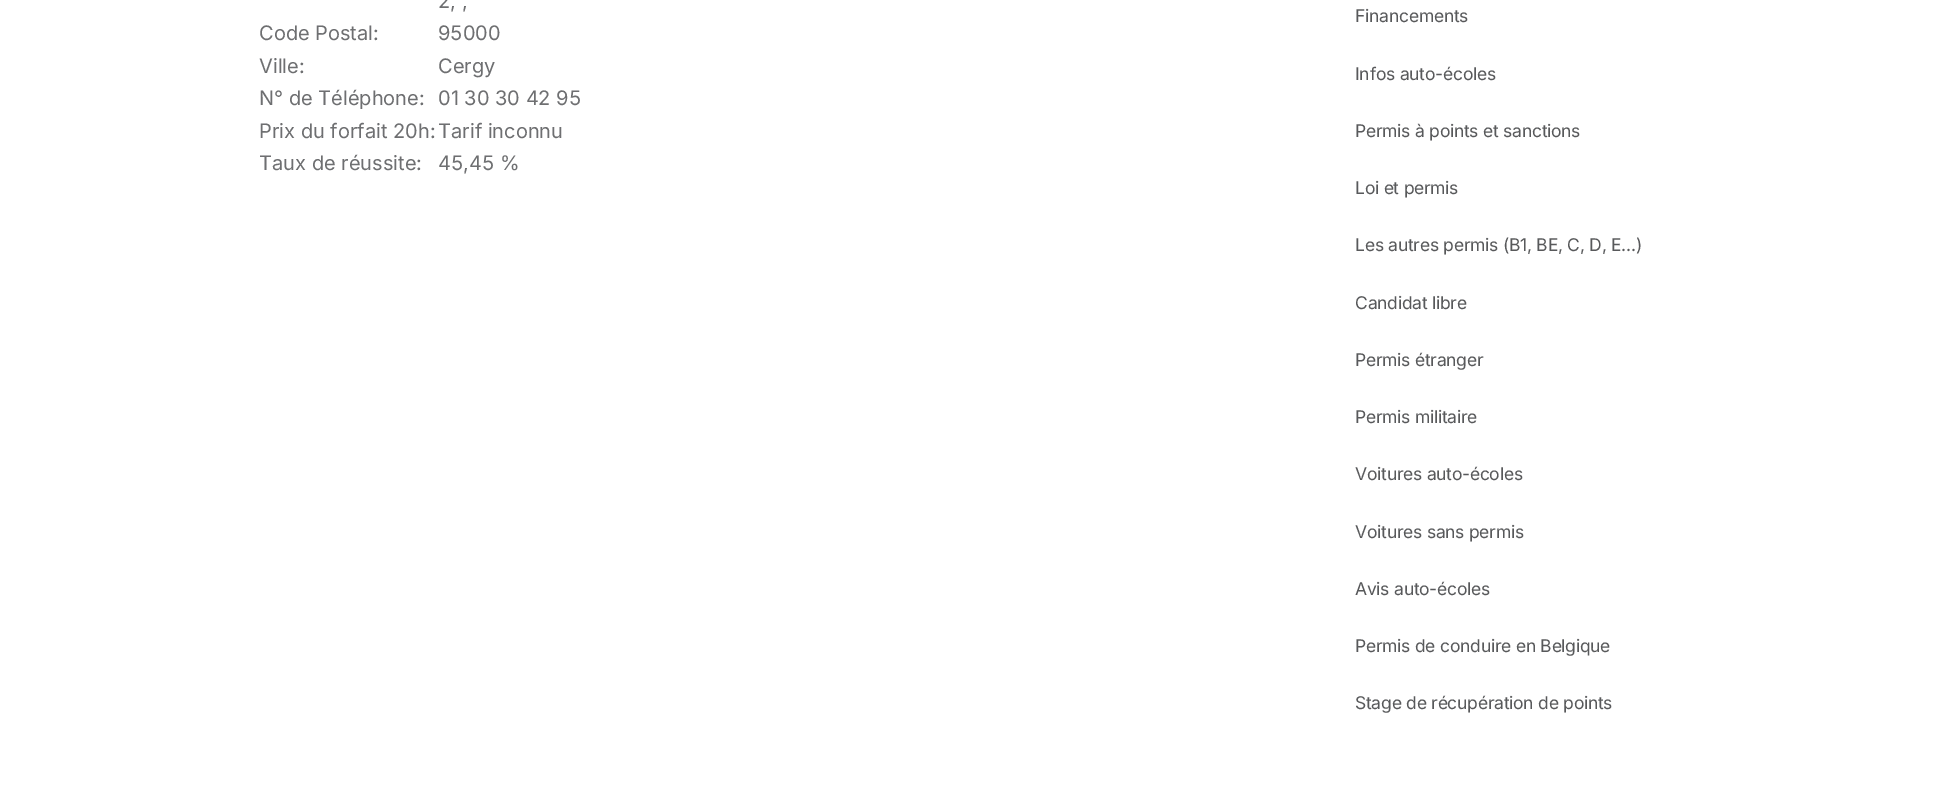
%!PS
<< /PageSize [1941 793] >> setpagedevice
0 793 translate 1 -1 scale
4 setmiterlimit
1 setgray
0 0 1941 793 rectfill
/Inter-Regular [20 0 0 -20 0 0] selectfont
0.431 0.435 0.443 setrgbcolor
438 8 moveto (2, ,) show
259 40 moveto (Code Postal:) show
438 40 moveto (95000) show
259 73 moveto (Ville:) show
438 73 moveto (Cergy) show
259 105 moveto (N° de Téléphone:) show
438 105 moveto (01 30 30 42 95) show
259 138 moveto (Prix du forfait 20h:) show
438 138 moveto (Tarif inconnu) show
259 170 moveto (Taux de réussite:) show
438 170 moveto (45,45 %) show
/Inter-Regular [17.5 0 0 -17.5 0 0] selectfont
0.345 0.349 0.357 setrgbcolor
1355 22 moveto -0.25 0 (Financements) ashow
1355 80 moveto -0.25 0 (Infos auto-écoles) ashow
1355 137 moveto -0.25 0 (Permis à points et sanctions) ashow
1355 194 moveto -0.25 0 (Loi et permis) ashow
1355 251 moveto -0.25 0 (Les autres permis \(B1, BE, C, D, E...\)) ashow
1355 309 moveto -0.25 0 (Candidat libre) ashow
1355 366 moveto -0.25 0 (Permis étranger) ashow
1355 423 moveto -0.25 0 (Permis militaire) ashow
1355 480 moveto -0.25 0 (Voitures auto-écoles) ashow
1355 538 moveto -0.25 0 (Voitures sans permis) ashow
1355 595 moveto -0.25 0 (Avis auto-écoles) ashow
1355 652 moveto -0.25 0 (Permis de conduire en Belgique) ashow
1355 709 moveto -0.25 0 (Stage de récupération de points) ashow
showpage
